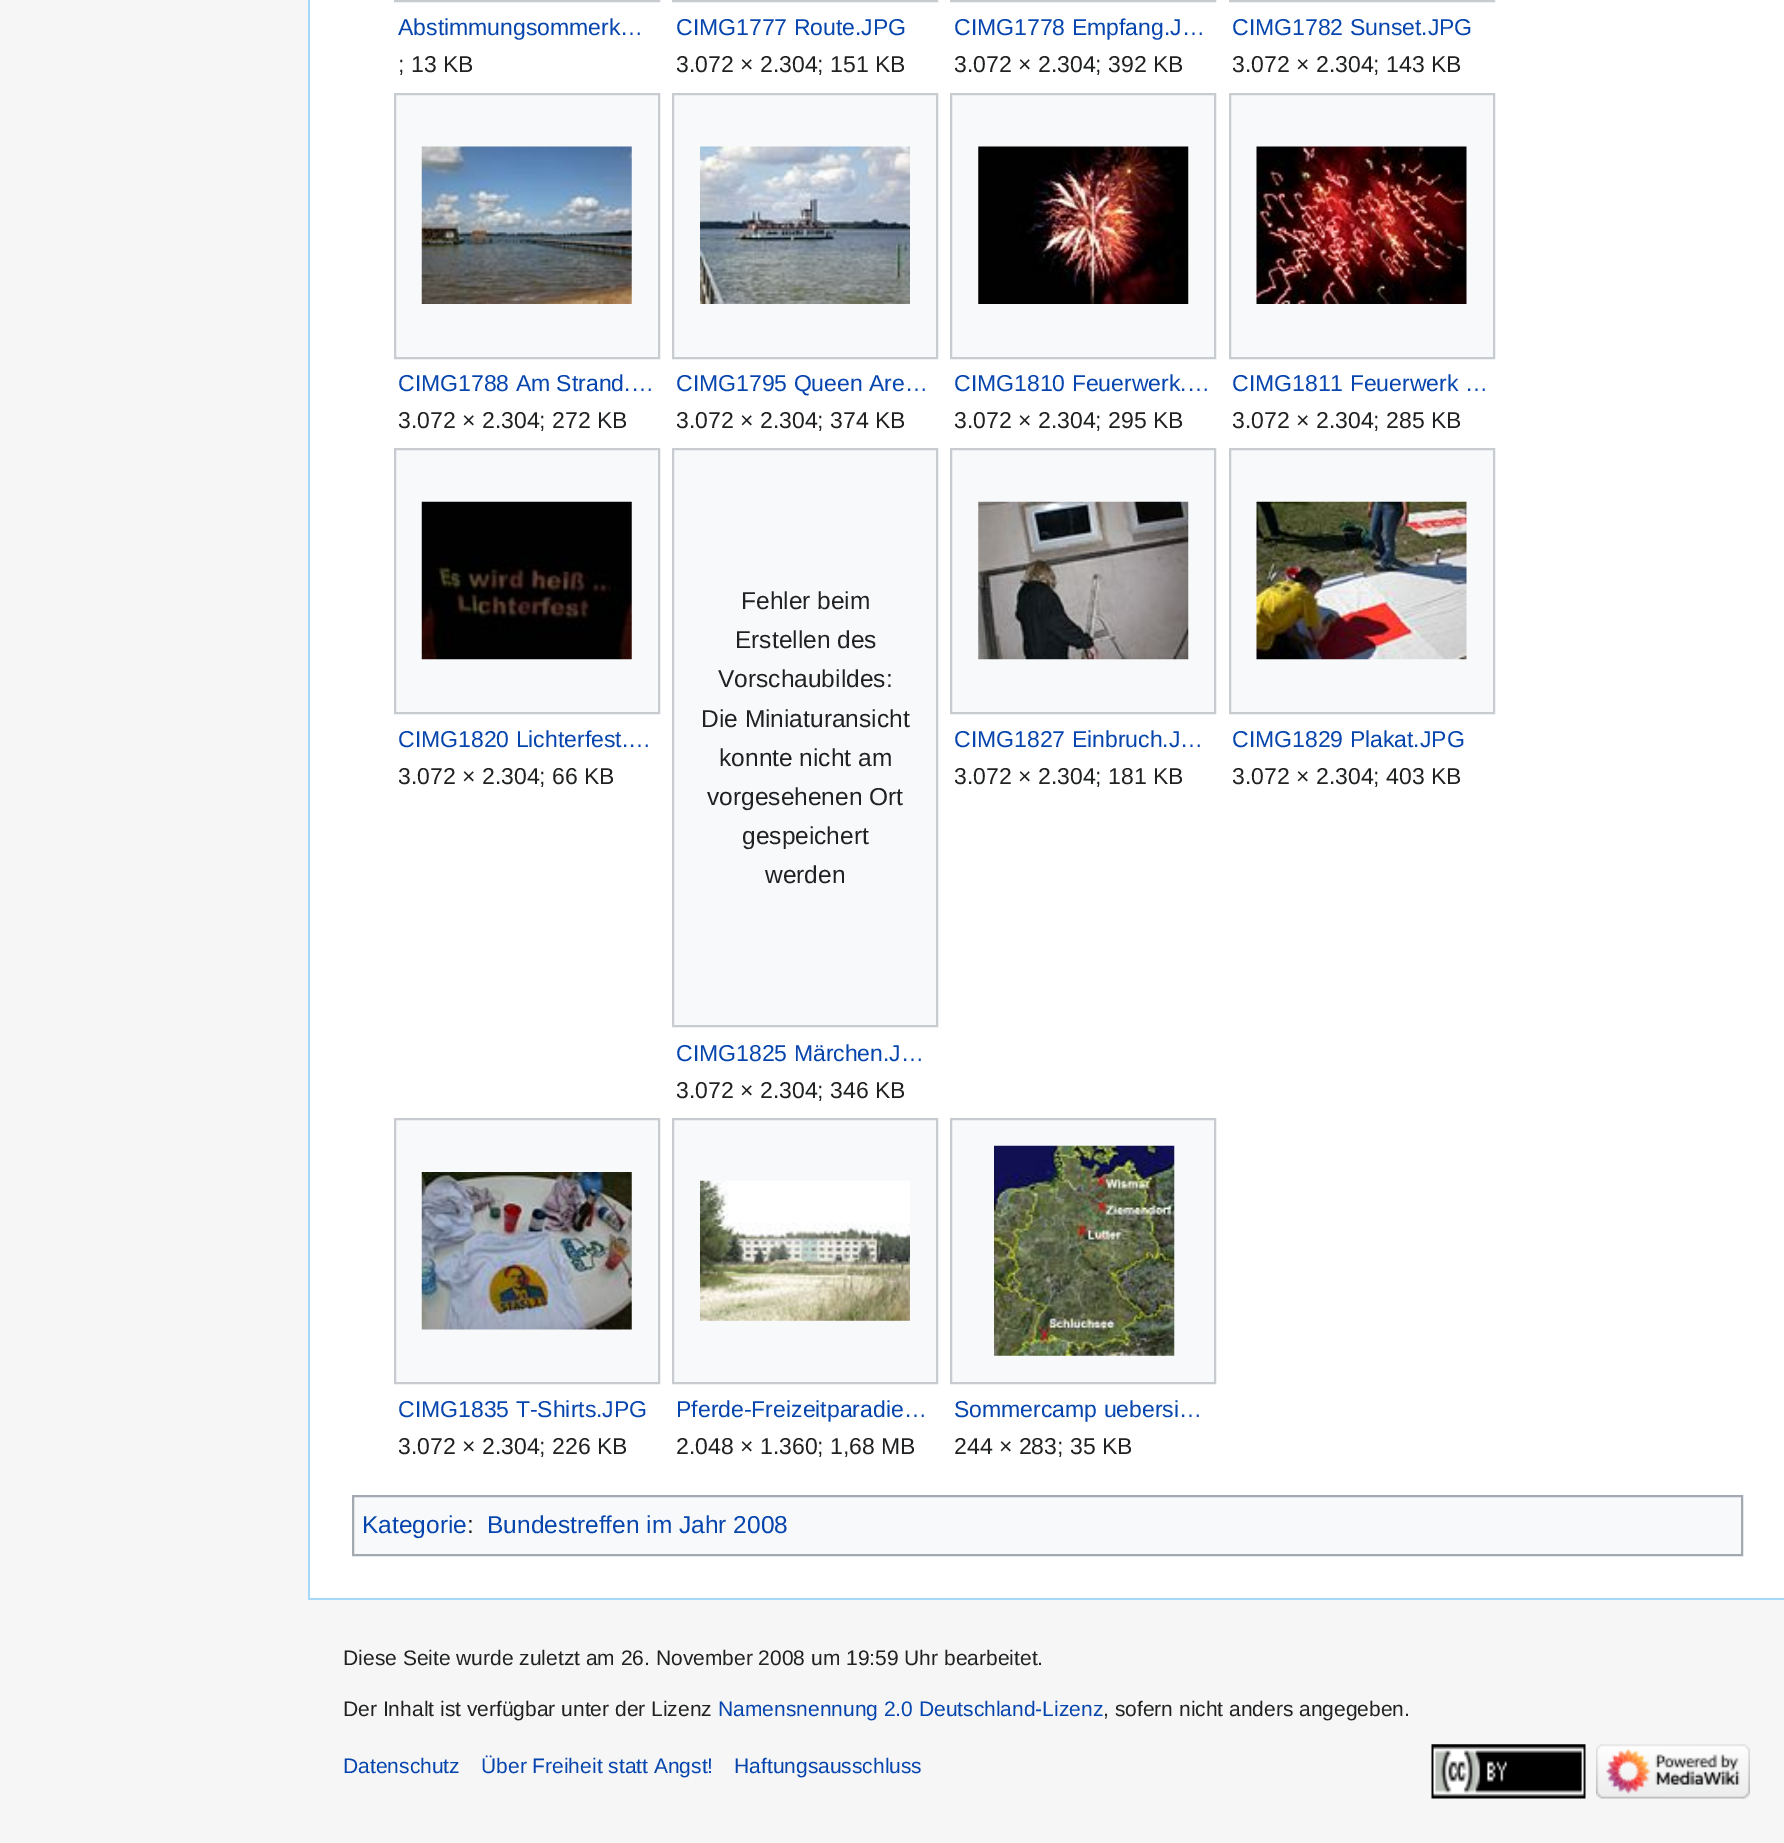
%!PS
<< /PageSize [1784 1843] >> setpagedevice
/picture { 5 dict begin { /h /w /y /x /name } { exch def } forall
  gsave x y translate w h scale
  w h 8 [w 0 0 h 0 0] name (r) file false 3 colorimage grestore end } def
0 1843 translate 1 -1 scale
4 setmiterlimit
0.965 setgray
0 0 1784 1843 rectfill
1 setgray
310 0 1474 1598 rectfill
0.655 0.843 0.976 setrgbcolor
308 1598 1476 2 rectfill
308 0 2 1600 rectfill
0.784 0.8 0.82 setrgbcolor
2 setlinewidth
395 -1 264 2 rectstroke
/LiberationSans-Regular [23 0 0 -23 0 0] selectfont
0.024 0.271 0.678 setrgbcolor
398 35 moveto (Abstimmungsommerk…) show
0.125 0.129 0.133 setrgbcolor
398 72 moveto (; 13 KB) show
0.784 0.8 0.82 setrgbcolor
673 -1 264 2 rectstroke
0.024 0.271 0.678 setrgbcolor
676 35 moveto (CIMG1777 Route.JPG) show
0.125 0.129 0.133 setrgbcolor
676 72 moveto (3.072 × 2.304; 151 KB) show
0.784 0.8 0.82 setrgbcolor
951 -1 264 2 rectstroke
0.024 0.271 0.678 setrgbcolor
954 35 moveto (CIMG1778 Empfang.J…) show
0.125 0.129 0.133 setrgbcolor
954 72 moveto (3.072 × 2.304; 392 KB) show
0.784 0.8 0.82 setrgbcolor
1230 -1 264 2 rectstroke
0.024 0.271 0.678 setrgbcolor
1232 35 moveto (CIMG1782 Sunset.JPG) show
0.125 0.129 0.133 setrgbcolor
1232 72 moveto (3.072 × 2.304; 143 KB) show
0.973 0.976 0.98 setrgbcolor
newpath 395 94 moveto 659 94 lineto 659 358 lineto 395 358 lineto closepath gsave fill grestore
0.784 0.8 0.82 setrgbcolor
stroke
(img1.rgb) 421 146 211 158 picture
0.024 0.271 0.678 setrgbcolor
398 391 moveto (CIMG1788 Am Strand.…) show
0.125 0.129 0.133 setrgbcolor
398 428 moveto (3.072 × 2.304; 272 KB) show
0.973 0.976 0.98 setrgbcolor
newpath 673 94 moveto 937 94 lineto 937 358 lineto 673 358 lineto closepath gsave fill grestore
0.784 0.8 0.82 setrgbcolor
stroke
(img2.rgb) 700 146 210 158 picture
0.024 0.271 0.678 setrgbcolor
676 391 moveto (CIMG1795 Queen Are…) show
0.125 0.129 0.133 setrgbcolor
676 428 moveto (3.072 × 2.304; 374 KB) show
0.973 0.976 0.98 setrgbcolor
newpath 951 94 moveto 1215 94 lineto 1215 358 lineto 951 358 lineto closepath gsave fill grestore
0.784 0.8 0.82 setrgbcolor
stroke
(img3.rgb) 978 146 211 158 picture
0.024 0.271 0.678 setrgbcolor
954 391 moveto (CIMG1810 Feuerwerk.…) show
0.125 0.129 0.133 setrgbcolor
954 428 moveto (3.072 × 2.304; 295 KB) show
0.973 0.976 0.98 setrgbcolor
newpath 1230 94 moveto 1494 94 lineto 1494 358 lineto 1230 358 lineto closepath gsave fill grestore
0.784 0.8 0.82 setrgbcolor
stroke
(img4.rgb) 1256 146 211 158 picture
0.024 0.271 0.678 setrgbcolor
1232 391 moveto (CIMG1811 Feuerwerk …) show
0.125 0.129 0.133 setrgbcolor
1232 428 moveto (3.072 × 2.304; 285 KB) show
0.973 0.976 0.98 setrgbcolor
newpath 395 449 moveto 659 449 lineto 659 713 lineto 395 713 lineto closepath gsave fill grestore
0.784 0.8 0.82 setrgbcolor
stroke
(img5.rgb) 421 501 211 159 picture
0.024 0.271 0.678 setrgbcolor
398 747 moveto (CIMG1820 Lichterfest.…) show
0.125 0.129 0.133 setrgbcolor
398 784 moveto (3.072 × 2.304; 66 KB) show
0.973 0.976 0.98 setrgbcolor
newpath 673 449 moveto 937 449 lineto 937 1026 lineto 673 1026 lineto closepath gsave fill grestore
0.784 0.8 0.82 setrgbcolor
stroke
/LiberationSans-Regular [24.5 0 0 -24.5 0 0] selectfont
0.125 0.129 0.133 setrgbcolor
741 609 moveto (Fehler beim) show
735 648 moveto (Erstellen des) show
718 687 moveto (Vorschaubildes:) show
701 727 moveto (Die Miniaturansicht) show
719 766 moveto (konnte nicht am) show
707 805 moveto (vorgesehenen Ort) show
742 844 moveto (gespeichert) show
765 883 moveto (werden) show
/LiberationSans-Regular [23 0 0 -23 0 0] selectfont
0.024 0.271 0.678 setrgbcolor
676 1061 moveto (CIMG1825 Märchen.J…) show
0.125 0.129 0.133 setrgbcolor
676 1098 moveto (3.072 × 2.304; 346 KB) show
0.973 0.976 0.98 setrgbcolor
newpath 951 449 moveto 1215 449 lineto 1215 713 lineto 951 713 lineto closepath gsave fill grestore
0.784 0.8 0.82 setrgbcolor
stroke
(img6.rgb) 978 501 211 159 picture
0.024 0.271 0.678 setrgbcolor
954 747 moveto (CIMG1827 Einbruch.J…) show
0.125 0.129 0.133 setrgbcolor
954 784 moveto (3.072 × 2.304; 181 KB) show
0.973 0.976 0.98 setrgbcolor
newpath 1230 449 moveto 1494 449 lineto 1494 713 lineto 1230 713 lineto closepath gsave fill grestore
0.784 0.8 0.82 setrgbcolor
stroke
(img7.rgb) 1256 501 211 159 picture
0.024 0.271 0.678 setrgbcolor
1232 747 moveto (CIMG1829 Plakat.JPG) show
0.125 0.129 0.133 setrgbcolor
1232 784 moveto (3.072 × 2.304; 403 KB) show
0.973 0.976 0.98 setrgbcolor
newpath 395 1119 moveto 659 1119 lineto 659 1383 lineto 395 1383 lineto closepath gsave fill grestore
0.784 0.8 0.82 setrgbcolor
stroke
(img8.rgb) 421 1172 211 158 picture
0.024 0.271 0.678 setrgbcolor
398 1417 moveto (CIMG1835 T-Shirts.JPG) show
0.125 0.129 0.133 setrgbcolor
398 1454 moveto (3.072 × 2.304; 226 KB) show
0.973 0.976 0.98 setrgbcolor
newpath 673 1119 moveto 937 1119 lineto 937 1383 lineto 673 1383 lineto closepath gsave fill grestore
0.784 0.8 0.82 setrgbcolor
stroke
(img9.rgb) 700 1180 210 141 picture
0.024 0.271 0.678 setrgbcolor
676 1417 moveto (Pferde-Freizeitparadie…) show
0.125 0.129 0.133 setrgbcolor
676 1454 moveto (2.048 × 1.360; 1,68 MB) show
0.973 0.976 0.98 setrgbcolor
newpath 951 1119 moveto 1215 1119 lineto 1215 1383 lineto 951 1383 lineto closepath gsave fill grestore
0.784 0.8 0.82 setrgbcolor
stroke
(img10.rgb) 994 1145 181 211 picture
0.024 0.271 0.678 setrgbcolor
954 1417 moveto (Sommercamp uebersi…) show
0.125 0.129 0.133 setrgbcolor
954 1454 moveto (244 × 283; 35 KB) show
0.973 0.976 0.98 setrgbcolor
newpath 353 1496 moveto 1742 1496 lineto 1742 1555 lineto 353 1555 lineto closepath gsave fill grestore
0.635 0.663 0.694 setrgbcolor
stroke
/LiberationSans-Regular [24.5 0 0 -24.5 0 0] selectfont
0.024 0.271 0.678 setrgbcolor
362 1533 moveto (Kategorie) show
0.125 0.129 0.133 setrgbcolor
467 1533 moveto (:) show
0.024 0.271 0.678 setrgbcolor
487 1533 moveto (Bundestreffen im Jahr 2008) show
/LiberationSans-Regular [21 0 0 -21 0 0] selectfont
0.125 0.129 0.133 setrgbcolor
343 1665 moveto (Diese Seite wurde zuletzt am 26. November 2008 um 19:59 Uhr bearbeitet.) show
343 1716 moveto (Der Inhalt ist verfügbar unter der Lizenz) show
0.024 0.271 0.678 setrgbcolor
718 1716 moveto (Namensnennung 2.0 Deutschland-Lizenz) show
0.125 0.129 0.133 setrgbcolor
1103 1716 moveto (, sofern nicht anders angegeben.) show
0.024 0.271 0.678 setrgbcolor
343 1773 moveto (Datenschutz) show
481 1773 moveto (Über Freiheit statt Angst!) show
734 1773 moveto (Haftungsausschluss) show
(img11.rgb) 1431 1744 155 55 picture
(img12.rgb) 1596 1744 154 55 picture
showpage
